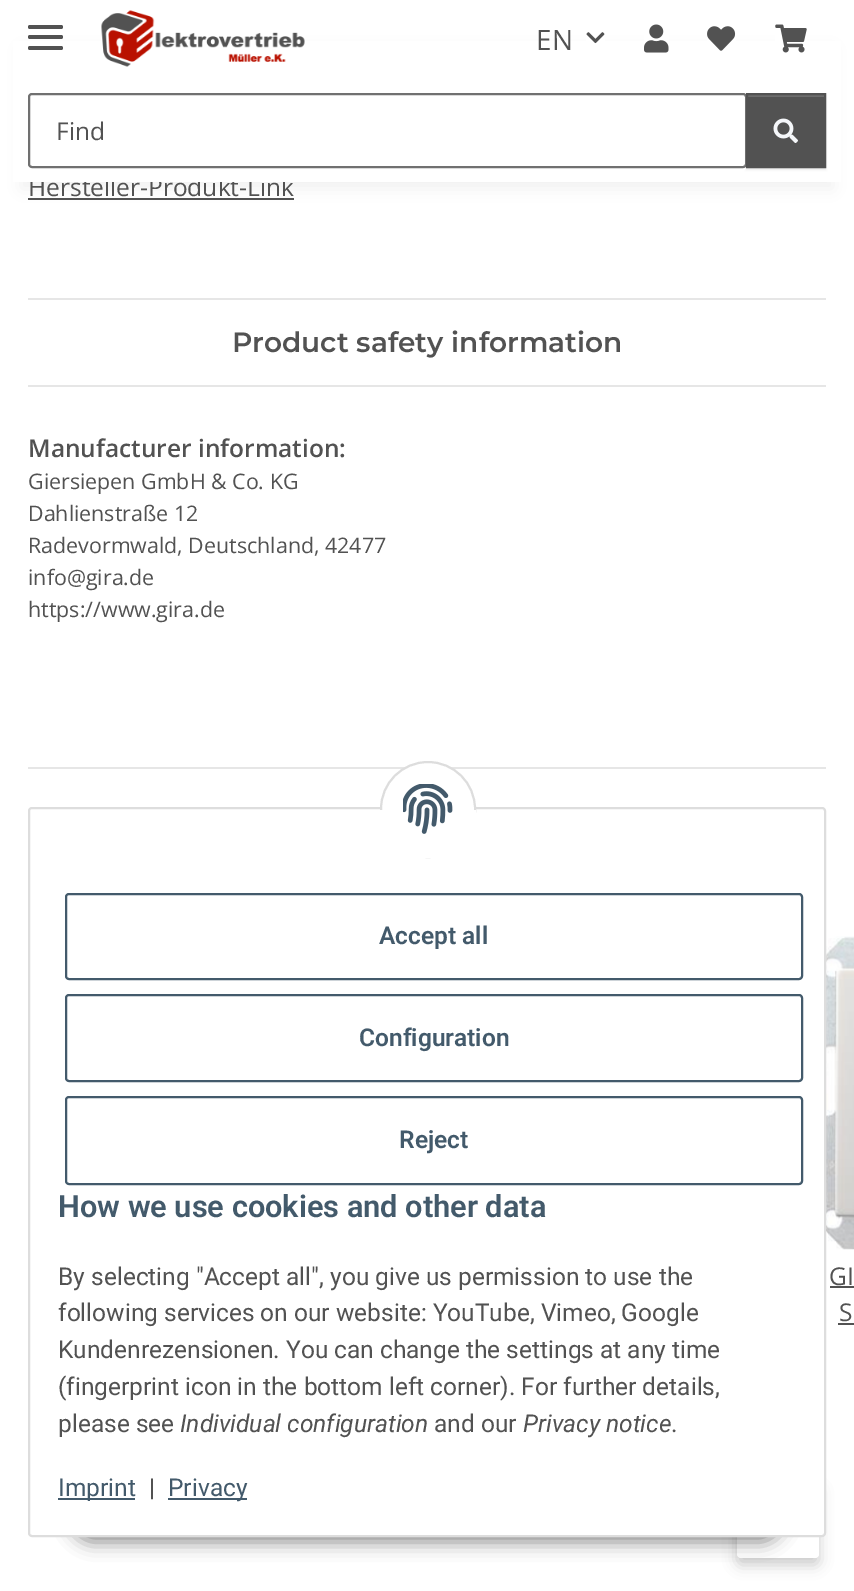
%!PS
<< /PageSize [854 1591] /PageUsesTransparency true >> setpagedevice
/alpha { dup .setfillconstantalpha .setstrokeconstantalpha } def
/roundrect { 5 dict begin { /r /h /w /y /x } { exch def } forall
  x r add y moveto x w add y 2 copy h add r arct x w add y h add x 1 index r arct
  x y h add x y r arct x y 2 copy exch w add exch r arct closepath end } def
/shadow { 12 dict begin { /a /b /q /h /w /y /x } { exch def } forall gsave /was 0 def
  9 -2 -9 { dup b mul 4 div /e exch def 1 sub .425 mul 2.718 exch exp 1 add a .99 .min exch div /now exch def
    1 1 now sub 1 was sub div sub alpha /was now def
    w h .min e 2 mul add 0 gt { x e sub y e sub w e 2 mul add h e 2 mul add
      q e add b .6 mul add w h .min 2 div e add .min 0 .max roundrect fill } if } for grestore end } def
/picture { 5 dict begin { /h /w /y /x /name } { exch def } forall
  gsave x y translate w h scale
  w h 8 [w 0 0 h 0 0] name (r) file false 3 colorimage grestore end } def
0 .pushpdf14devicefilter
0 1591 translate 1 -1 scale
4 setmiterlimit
1 setgray
0 0 854 1591 rectfill
0.322 setgray
28 198 266 2 rectfill
0 setgray
21 49 812 140 0 8 0.06 shadow
/OpenSans-Regular [24.5 0 0 -24.5 0 0] selectfont
0.322 setgray
28 196 moveto (Hersteller-Produkt-Link) show
1 setgray
13 41 828 141 rectfill
0.322 setgray
28 35 35 4 2 roundrect fill
28 25 35 4 2 roundrect fill
28 46 35 4 2 roundrect fill
(img1.rgb) 101 10 204 57 picture
/OpenSans-Regular [28 0 0 -28 0 0] selectfont
536 50 moveto (EN) show
(img2.rgb) 586 32 19 12 picture
(img3.rgb) 644 24 25 29 picture
(img4.rgb) 707 26 29 25 picture
(img5.rgb) 775 24 32 29 picture
0.439 setgray
2 setlinewidth
29 94 717 73 3 roundrect stroke
/OpenSans-Regular [24.5 0 0 -24.5 0 0] selectfont
0.322 setgray
56 140 moveto (Find) show
0 setgray
746 95 80 75 0 1 0.07 shadow
0.322 setgray
748 97 76 69 rectfill
0.424 setgray
747 95 77 2 rectfill
0.322 setgray
747 94 78 73 rectstroke
(img6.rgb) 773 118 25 25 picture
0.902 setgray
28 298 798 2 rectfill
28 385 798 2 rectfill
/Montserrat-SemiBold [28 0 0 -28 0 0] selectfont
0.322 setgray
232 352 moveto (Product safety information) show
/OpenSans-SemiBold [24.5 0 0 -24.5 0 0] selectfont
28 457 moveto (Manufacturer information:) show
/OpenSans-Regular [21.4 0 0 -21.4 0 0] selectfont
28 489 moveto (Giersiepen GmbH & Co. KG) show
28 521 moveto (Dahlienstraße 12) show
28 553 moveto (Radevormwald, Deutschland, 42477) show
28 585 moveto (info@gira.de) show
28 617 moveto (https://www.gira.de) show
0.902 setgray
28 767 798 2 rectfill
(img7.rgb) 826 936 28 314 picture
/OpenSans-Regular [24.5 0 0 -24.5 0 0] selectfont
0.322 setgray
829 1285 moveto (GI) show
830 1286 24 2 rectfill
839 1321 moveto (S) show
838 1323 16 2 rectfill
0 setgray
737 1488 82 77 4 7 0.2 shadow
1 setgray
737 1481 82 77 4 roundrect fill
0 setgray
70 1486 714 56 28 9 0.45 shadow
1 setgray
29 808 796 728 3 roundrect gsave fill grestore
0.867 setgray
stroke
1 setgray
381 762 94 95 47 roundrect gsave fill grestore
0.867 setgray
stroke
1 setgray
380 810 96 48 rectfill
(img8.rgb) 403 784 50 50 picture
0.263 0.353 0.42 setrgbcolor
66 894 736 85 3 roundrect stroke
/Roboto-SemiBold [24.5 0 0 -24.5 0 0] selectfont
379 944 moveto (Accept all) show
66 995 736 86 3 roundrect stroke
359 1046 moveto (Configuration) show
66 1097 736 87 3 roundrect stroke
399 1148 moveto (Reject) show
/Roboto-SemiBold [30.75 0 0 -30.75 0 0] selectfont
58 1217 moveto (How we use cookies and other data) show
/Roboto-Regular [24.5 0 0 -24.5 0 0] selectfont
0.322 setgray
58 1285 moveto (By selecting "Accept all", you give us permission to use the) show
58 1321 moveto (following services on our website: YouTube, Vimeo, Google) show
58 1358 moveto (Kundenrezensionen. You can change the settings at any time) show
58 1395 moveto (\(fingerprint icon in the bottom left corner\). For further details,) show
58 1432 moveto (please see) show
/Roboto-Italic [24.5 0 0 -24.5 0 0] selectfont
180 1432 moveto (Individual configuration) show
/Roboto-Regular [24.5 0 0 -24.5 0 0] selectfont
434 1432 moveto (and our) show
/Roboto-Italic [24.5 0 0 -24.5 0 0] selectfont
523 1432 moveto (Privacy notice) show
/Roboto-Regular [24.5 0 0 -24.5 0 0] selectfont
671 1432 moveto (.) show
0.263 0.353 0.42 setrgbcolor
58 1498 77 2 rectfill
58 1496 moveto (Imprint) show
0.322 setgray
149 1496 moveto (|) show
0.263 0.353 0.42 setrgbcolor
168 1498 79 2 rectfill
168 1496 moveto (Privacy) show
.poppdf14devicefilter showpage
